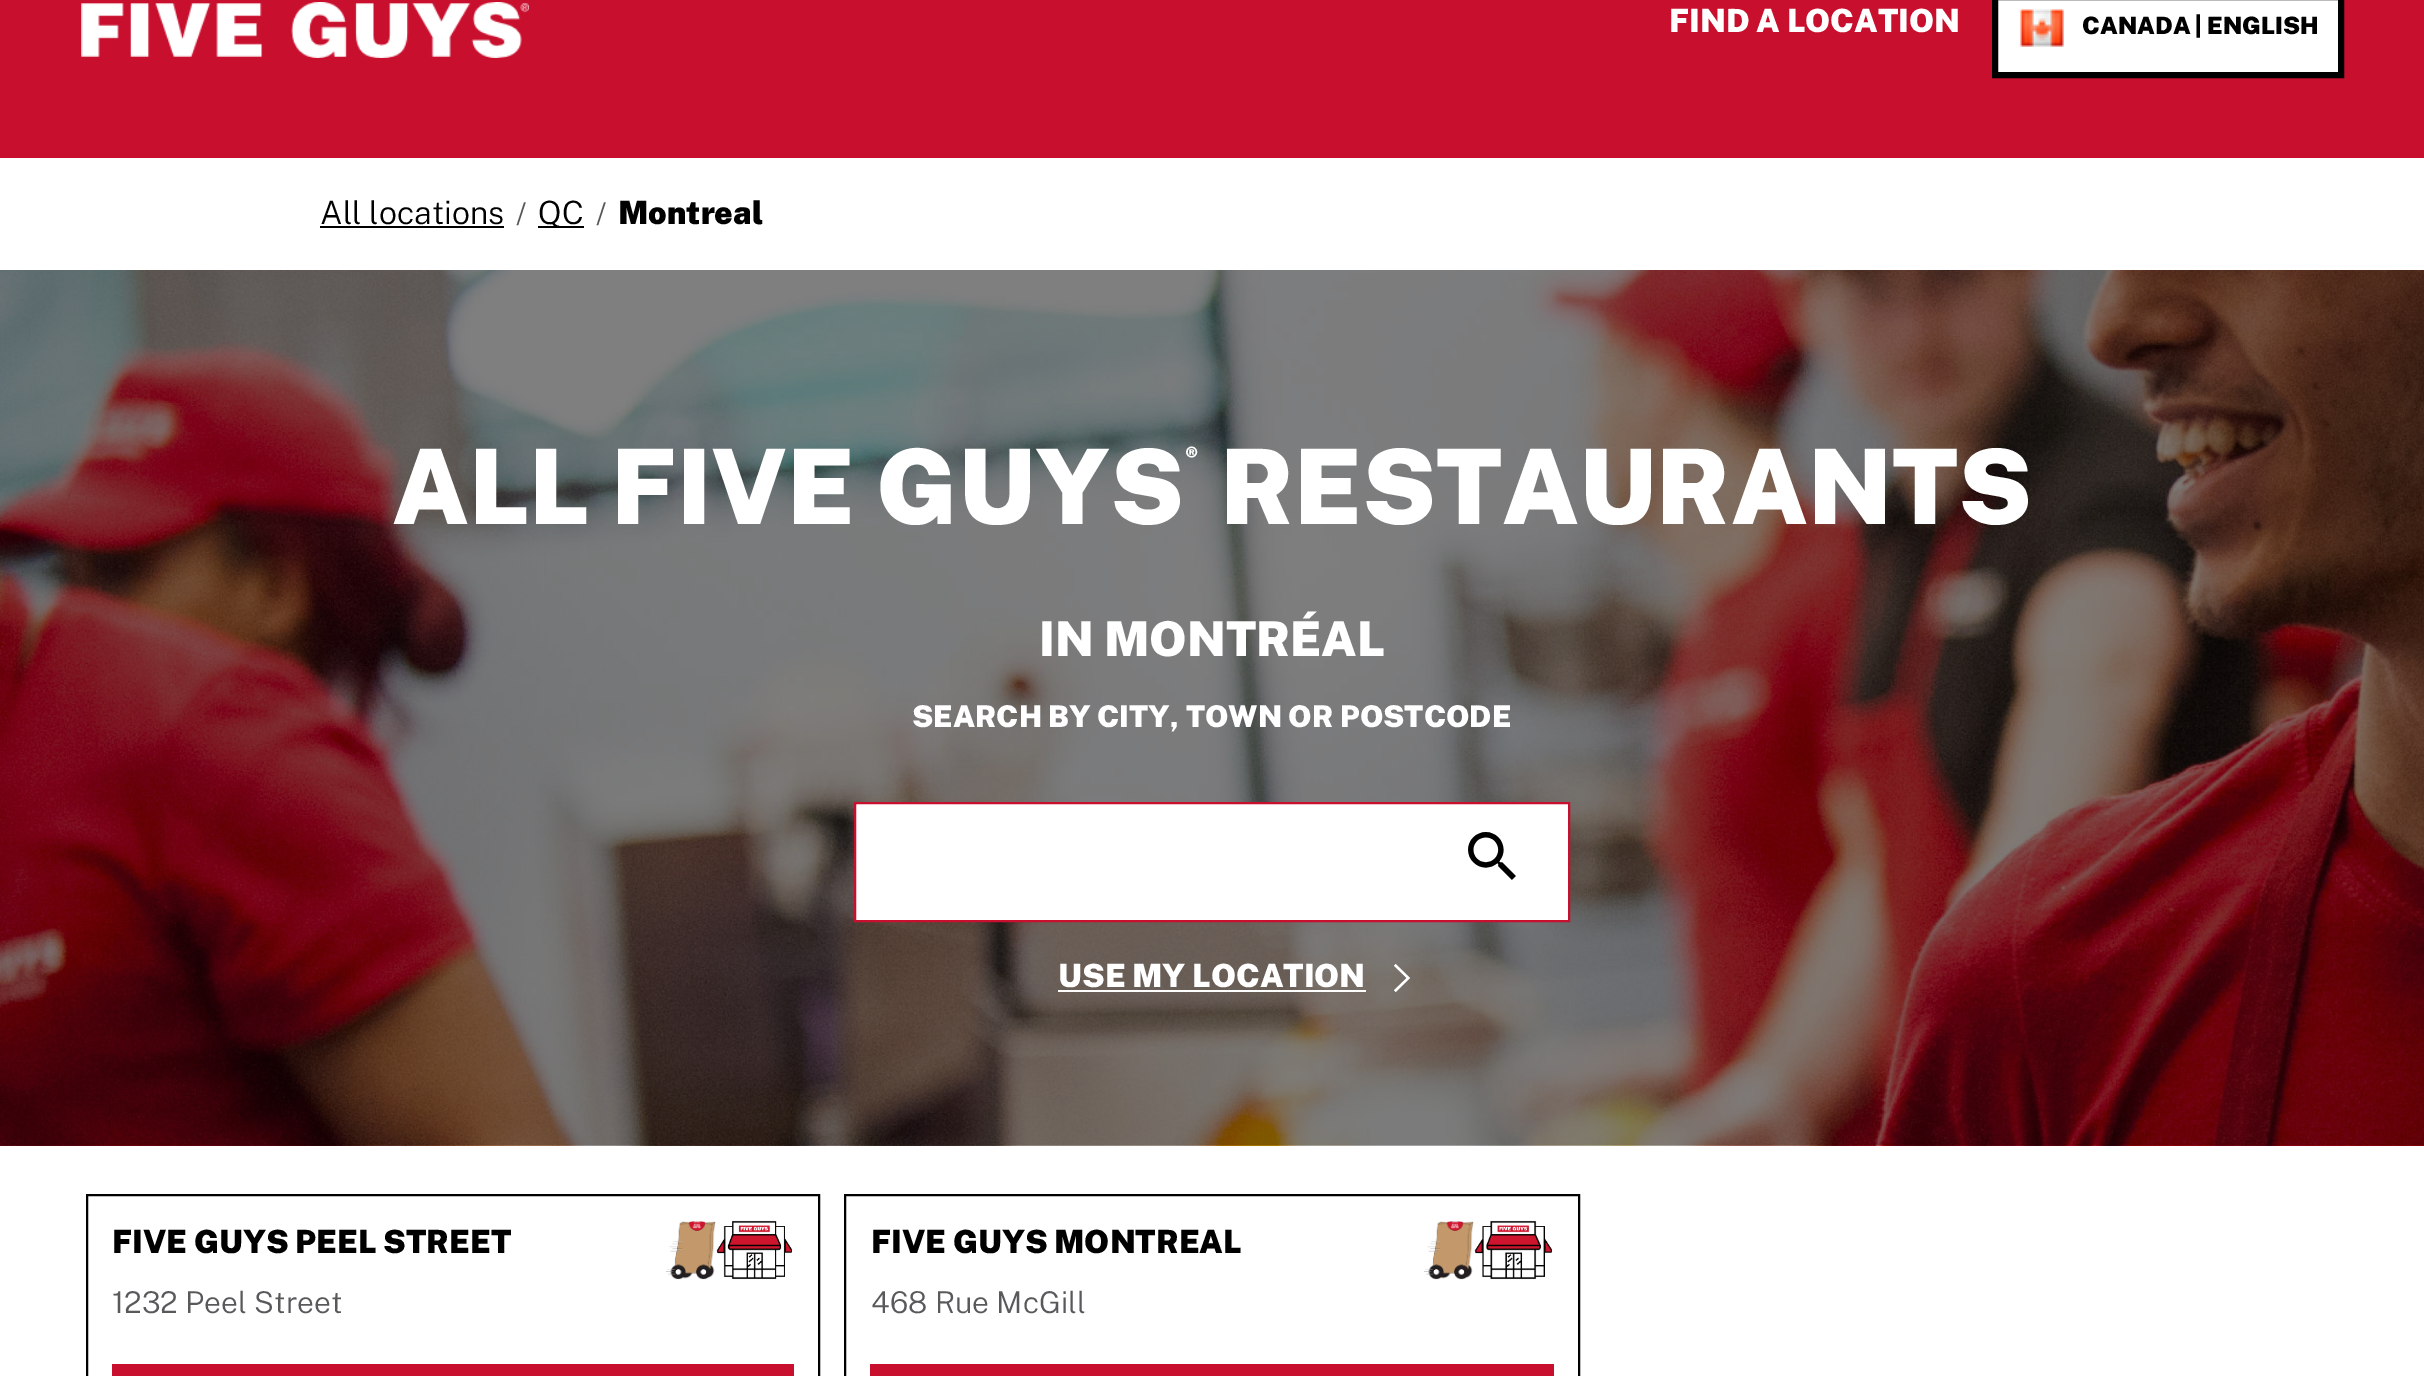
%!PS
<< /PageSize [2424 1376] >> setpagedevice
/picture { 5 dict begin { /h /w /y /x /name } { exch def } forall
  gsave x y translate w h scale
  w h 8 [w 0 0 h 0 0] name (r) file false 3 colorimage grestore end } def
0 1376 translate 1 -1 scale
4 setmiterlimit
1 setgray
0 0 2424 1376 rectfill
0.784 0.063 0.18 setrgbcolor
0 0 2424 158 rectfill
(img1.rgb) 81 2 448 56 picture
/PublicSans-Black [32 0 0 -32 0 0] selectfont
1 setgray
1669 32 moveto (FIND A LOCATION) show
newpath 1995 -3 moveto 2341 -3 lineto 2341 75 lineto 1995 75 lineto closepath gsave fill grestore
0 setgray
6 setlinewidth
stroke
(img2.rgb) 2020 9 44 38 picture
/PublicSans-Black [24 0 0 -24 0 0] selectfont
2082 34 moveto (CANADA | ENGLISH) show
/PublicSans-Light [32 0 0 -32 0 0] selectfont
320 224 moveto (All locations) show
320 226 184 2 rectfill
/PublicSans-Light [30 0 0 -30 0 0] selectfont
0.349 0.349 0.361 setrgbcolor
516 224 moveto (/) show
0 setgray
538 226 46 2 rectfill
/PublicSans-Light [32 0 0 -32 0 0] selectfont
538 224 moveto (QC) show
/PublicSans-Light [30 0 0 -30 0 0] selectfont
0.349 0.349 0.361 setrgbcolor
596 224 moveto (/) show
/PublicSans-Black [32 0 0 -32 0 0] selectfont
0 setgray
618 224 moveto (Montreal) show
(img3.rgb) 0 270 2424 876 picture
/PublicSans-Black [104 0 0 -104 0 0] selectfont
1 setgray
392 524 moveto (ALL FIVE GUYS) show
/PublicSans-Black [24 0 0 -24 0 0] selectfont
1185 464 moveto (®) show
/PublicSans-Black [104 0 0 -104 0 0] selectfont
1220 524 moveto (RESTAURANTS) show
/PublicSans-Black [48 0 0 -48 0 0] selectfont
1039 656 moveto (IN MONTRÉAL) show
/PublicSans-Black [30 0 0 -30 0 0] selectfont
912 727 moveto (SEARCH BY CITY, TOWN OR POSTCODE) show
newpath 855 803 moveto 1569 803 lineto 1569 921 lineto 855 921 lineto closepath gsave fill grestore
0.784 0.063 0.18 setrgbcolor
2 setlinewidth
stroke
(img4.rgb) 1468 832 48 48 picture
/PublicSans-Black [32 0 0 -32 0 0] selectfont
1 setgray
1058 987 moveto (USE MY LOCATION) show
1058 990 308 2 rectfill
(img5.rgb) 1394 964 16 28 picture
0 setgray
87 1195 732 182 rectstroke
112 1253 moveto (FIVE GUYS PEEL STREET) show
/PublicSans-Light [30 0 0 -30 0 0] selectfont
0.349 0.349 0.361 setrgbcolor
112 1313 moveto (1232 Peel Street) show
(img6.rgb) 666 1221 50 59 picture
(img7.rgb) 716 1220 77 60 picture
0.784 0.063 0.18 setrgbcolor
112 1364 682 12 rectfill
0 setgray
845 1195 734 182 rectstroke
/PublicSans-Black [32 0 0 -32 0 0] selectfont
871 1253 moveto (FIVE GUYS MONTREAL) show
/PublicSans-Light [30 0 0 -30 0 0] selectfont
0.349 0.349 0.361 setrgbcolor
871 1313 moveto (468 Rue McGill) show
(img8.rgb) 1424 1221 50 59 picture
(img9.rgb) 1474 1220 79 60 picture
0.784 0.063 0.18 setrgbcolor
870 1364 684 12 rectfill
showpage
